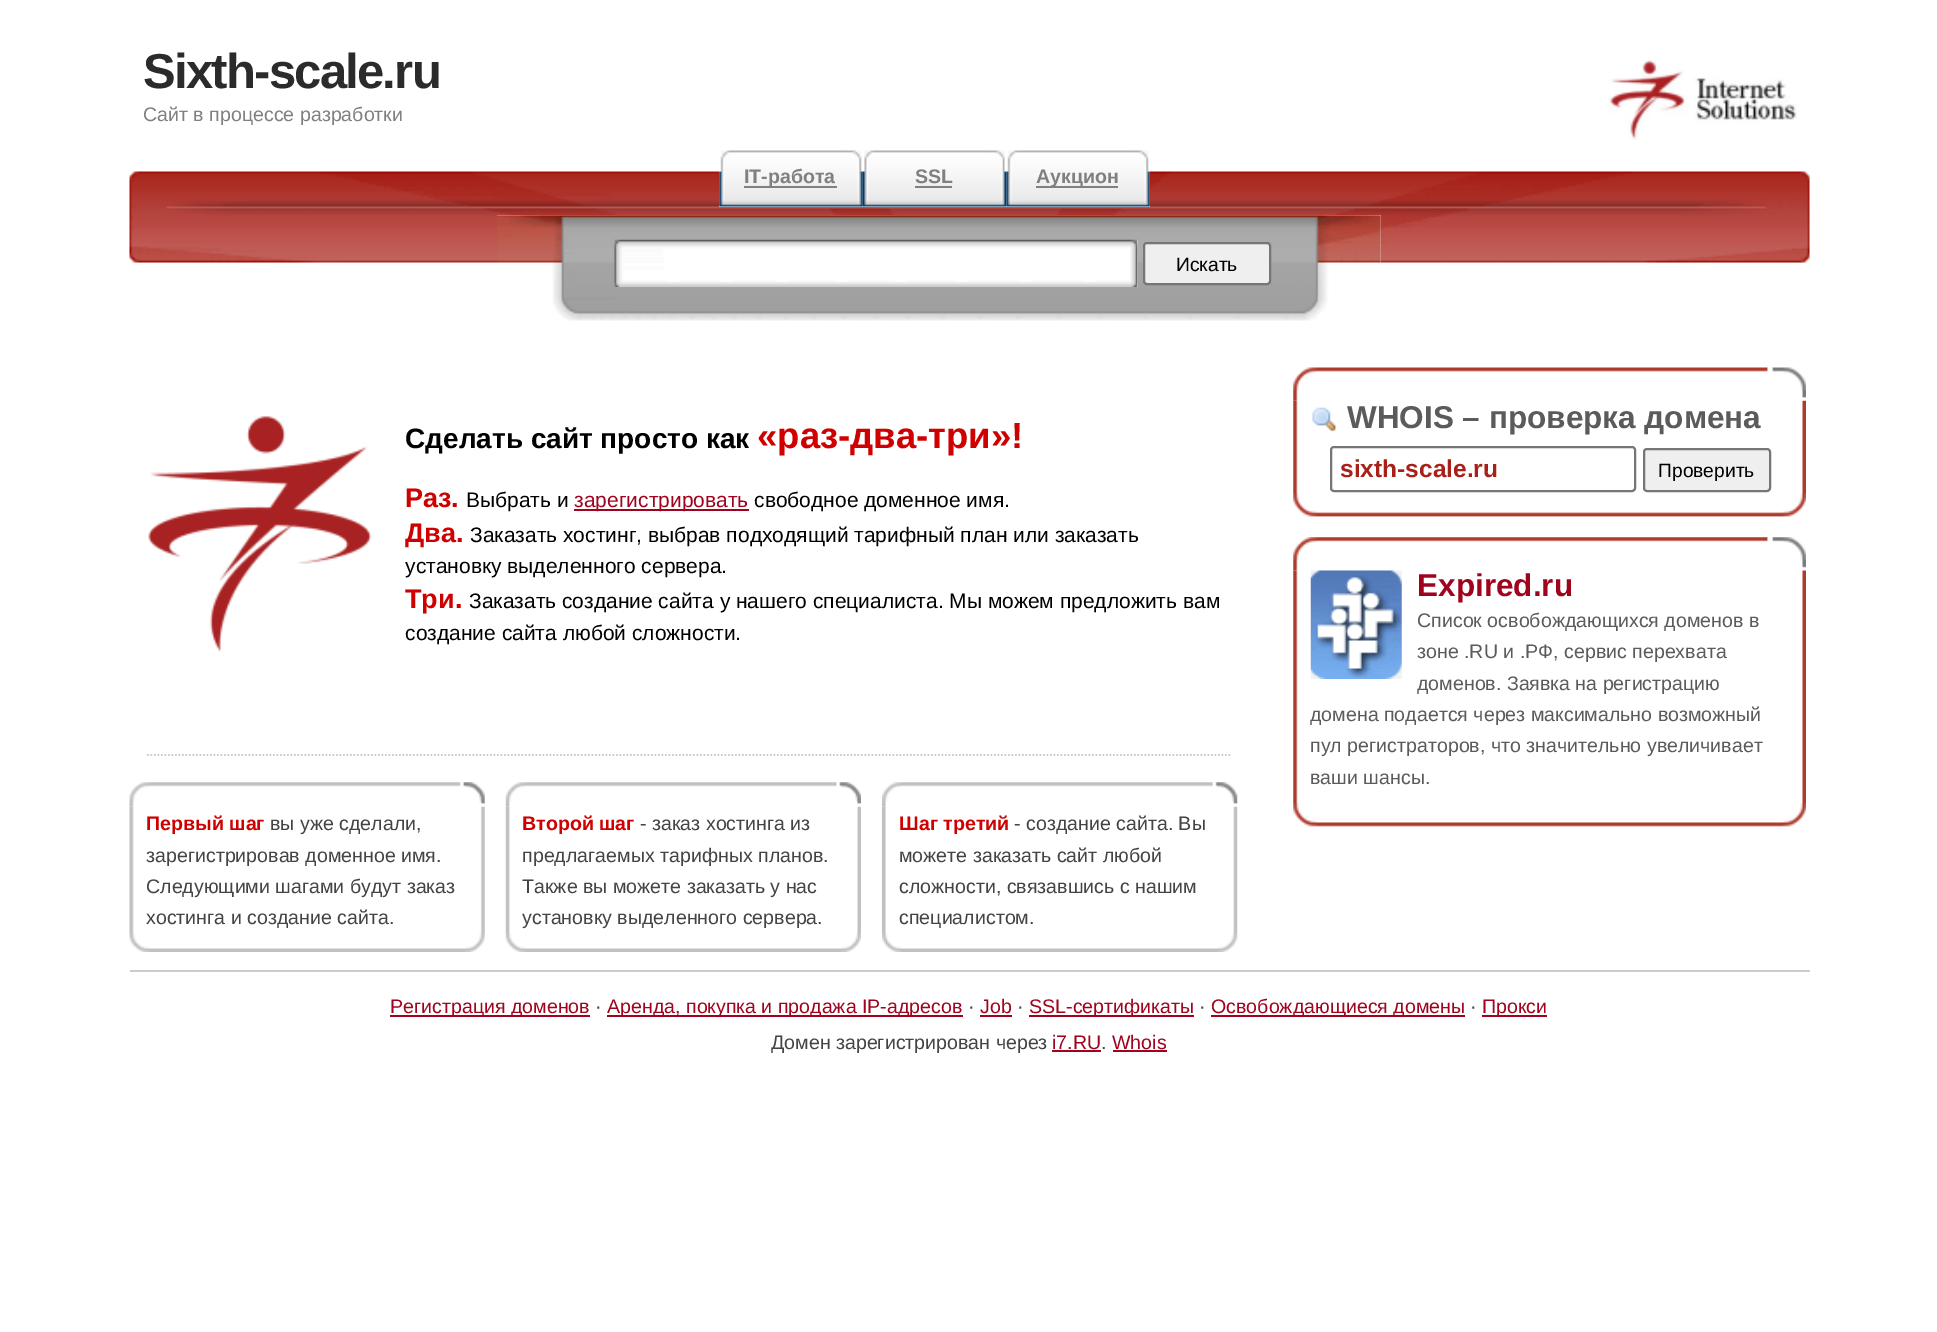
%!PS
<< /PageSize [1937 1332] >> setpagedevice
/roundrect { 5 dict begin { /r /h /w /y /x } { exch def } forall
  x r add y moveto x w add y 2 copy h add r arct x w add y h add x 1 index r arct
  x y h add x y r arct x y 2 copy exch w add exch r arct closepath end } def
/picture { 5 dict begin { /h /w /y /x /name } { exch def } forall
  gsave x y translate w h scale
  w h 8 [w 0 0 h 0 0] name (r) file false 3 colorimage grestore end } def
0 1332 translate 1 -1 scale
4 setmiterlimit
1 setgray
0 0 1937 1332 rectfill
/LiberationSans-Bold [49 0 0 -49 0 0] selectfont
0.169 setgray
143 88 moveto -1.75 0 (Sixth-scale.ru) ashow
/LiberationSans-Regular [19.6 0 0 -19.6 0 0] selectfont
0.502 setgray
143 121 moveto (Сайт в процессе разработки) show
(img1.rgb) 1608 60 189 80 picture
(img2.rgb) 129 171 1681 92 picture
1 setgray
719 171 144 36 rectfill
(img3.rgb) 719 150 144 57 picture
0.502 setgray
744 186 93 2 rectfill
/LiberationSans-Bold [19.6 0 0 -19.6 0 0] selectfont
744 183 moveto (IT-работа) show
1 setgray
863 206 143 1 rectfill
(img4.rgb) 862 150 145 57 picture
0.502 setgray
915 183 moveto (SSL) show
915 186 37 2 rectfill
1 setgray
1006 171 144 36 rectfill
(img5.rgb) 1006 150 144 57 picture
0.502 setgray
1036 186 82 2 rectfill
1036 183 moveto (Аукцион) show
1 setgray
497 215 884 48 rectfill
(img6.rgb) 497 215 884 106 picture
614 240 524 47 rectfill
(img7.rgb) 614 239 524 48 picture
0.937 setgray
1144 243 126 41 3 roundrect gsave fill grestore
0.463 setgray
2 setlinewidth
stroke
/LiberationSans-Regular [19.25 0 0 -19.25 0 0] selectfont
0 setgray
1176 271 moveto (Искать) show
0.8 setgray
1.8 setlinewidth
[1.75 1.75] 0 setdash
newpath 147 755 moveto 1232 755 lineto stroke
(img8.rgb) 148 416 224 236 picture
/LiberationSans-Bold [28 0 0 -28 0 0] selectfont
0 setgray
405 448 moveto (Сделать сайт просто как) show
/LiberationSans-Bold [36.5 0 0 -36.5 0 0] selectfont
0.808 0 0 setrgbcolor
757 448 moveto («раз-два-три»!) show
/LiberationSans-Bold [27 0 0 -27 0 0] selectfont
405 507 moveto (Раз.) show
/LiberationSans-Regular [21 0 0 -21 0 0] selectfont
0 setgray
466 507 moveto (Выбрать и) show
0.627 0.012 0.114 setrgbcolor
574 509 175 2 rectfill
574 507 moveto (зарегистрировать) show
0 setgray
754 507 moveto (свободное доменное имя.) show
/LiberationSans-Bold [27 0 0 -27 0 0] selectfont
0.808 0 0 setrgbcolor
405 542 moveto (Два.) show
/LiberationSans-Regular [21 0 0 -21 0 0] selectfont
0 setgray
470 542 moveto (Заказать хостинг, выбрав подходящий тарифный план или заказать) show
405 573 moveto (установку выделенного сервера.) show
/LiberationSans-Bold [27 0 0 -27 0 0] selectfont
0.808 0 0 setrgbcolor
405 608 moveto (Три.) show
/LiberationSans-Regular [21 0 0 -21 0 0] selectfont
0 setgray
469 608 moveto (Заказать создание сайта у нашего специалиста. Мы можем предложить вам) show
405 640 moveto (создание сайта любой сложности.) show
(img9.rgb) 129 782 356 25 picture
(img10.rgb) 129 806 356 146 picture
/LiberationSans-Bold [19.6 0 0 -19.6 0 0] selectfont
0.808 0 0 setrgbcolor
146 830 moveto (Первый шаг) show
/LiberationSans-Regular [19.6 0 0 -19.6 0 0] selectfont
0.267 setgray
270 830 moveto (вы уже сделали,) show
146 862 moveto (зарегистрировав доменное имя.) show
146 893 moveto (Следующими шагами будут заказ) show
146 924 moveto (хостинга и создание сайта.) show
(img11.rgb) 505 782 356 25 picture
(img12.rgb) 505 806 356 146 picture
/LiberationSans-Bold [19.6 0 0 -19.6 0 0] selectfont
0.808 0 0 setrgbcolor
522 830 moveto (Второй шаг) show
/LiberationSans-Regular [19.6 0 0 -19.6 0 0] selectfont
0.267 setgray
640 830 moveto (- заказ хостинга из) show
522 862 moveto (предлагаемых тарифных планов.) show
522 893 moveto (Также вы можете заказать у нас) show
522 924 moveto (установку выделенного сервера.) show
(img13.rgb) 882 782 356 25 picture
(img14.rgb) 882 806 356 146 picture
/LiberationSans-Bold [19.6 0 0 -19.6 0 0] selectfont
0.808 0 0 setrgbcolor
899 830 moveto (Шаг третий) show
/LiberationSans-Regular [19.6 0 0 -19.6 0 0] selectfont
0.267 setgray
1014 830 moveto (- создание сайта. Вы) show
899 862 moveto (можете заказать сайт любой) show
899 893 moveto (сложности, связавшись с нашим) show
899 924 moveto (специалистом.) show
(img15.rgb) 1293 367 513 34 picture
(img16.rgb) 1293 400 513 117 picture
(img17.rgb) 1312 407 24 26 picture
/LiberationSans-Bold [31.5 0 0 -31.5 0 0] selectfont
0.357 setgray
1347 428 moveto (WHOIS – проверка домена) show
0.463 setgray
2 setlinewidth
[] 0 setdash
1331 447 304 44 3 roundrect stroke
/LiberationSans-Bold [24.5 0 0 -24.5 0 0] selectfont
0.655 0.129 0.098 setrgbcolor
1340 477 moveto (sixth-scale.ru) show
0.937 setgray
1644 449 126 42 3 roundrect gsave fill grestore
0.463 setgray
stroke
/LiberationSans-Regular [19.25 0 0 -19.25 0 0] selectfont
0 setgray
1658 477 moveto (Проверить) show
(img18.rgb) 1293 537 513 34 picture
(img19.rgb) 1293 570 513 257 picture
(img20.rgb) 1310 570 92 109 picture
/LiberationSans-Bold [31.5 0 0 -31.5 0 0] selectfont
0.627 0.012 0.114 setrgbcolor
1417 596 moveto (Expired.ru) show
/LiberationSans-Regular [19.6 0 0 -19.6 0 0] selectfont
0.357 setgray
1417 627 moveto (Список освобождающихся доменов в) show
1417 658 moveto (зоне .RU и .РФ, сервис перехвата) show
1417 690 moveto (доменов. Заявка на регистрацию) show
1310 721 moveto (домена подается через максимально возможный) show
1310 752 moveto (пул регистраторов, что значительно увеличивает) show
1310 784 moveto (ваши шансы.) show
0.8 setgray
130 970 1680 2 rectfill
0.627 0.012 0.114 setrgbcolor
390 1015 200 2 rectfill
390 1013 moveto (Регистрация доменов) show
0.267 setgray
595 1013 moveto (·) show
0.627 0.012 0.114 setrgbcolor
607 1015 356 2 rectfill
607 1013 moveto (Аренда, покупка и продажа IP-адресов) show
0.267 setgray
968 1013 moveto (·) show
0.627 0.012 0.114 setrgbcolor
980 1013 moveto (Job) show
980 1015 32 2 rectfill
0.267 setgray
1017 1013 moveto (·) show
0.627 0.012 0.114 setrgbcolor
1029 1015 165 2 rectfill
1029 1013 moveto (SSL-сертификаты) show
0.267 setgray
1199 1013 moveto (·) show
0.627 0.012 0.114 setrgbcolor
1211 1015 254 2 rectfill
1211 1013 moveto (Освобождающиеся домены) show
0.267 setgray
1470 1013 moveto (·) show
0.627 0.012 0.114 setrgbcolor
1482 1015 65 2 rectfill
1482 1013 moveto (Прокси) show
0.267 setgray
771 1049 moveto (Домен зарегистрирован через) show
0.627 0.012 0.114 setrgbcolor
1052 1049 moveto (i7.RU) show
1052 1050 49 2 rectfill
0.267 setgray
1101 1049 moveto (.) show
0.627 0.012 0.114 setrgbcolor
1112 1049 moveto (Whois) show
1113 1050 54 2 rectfill
showpage
